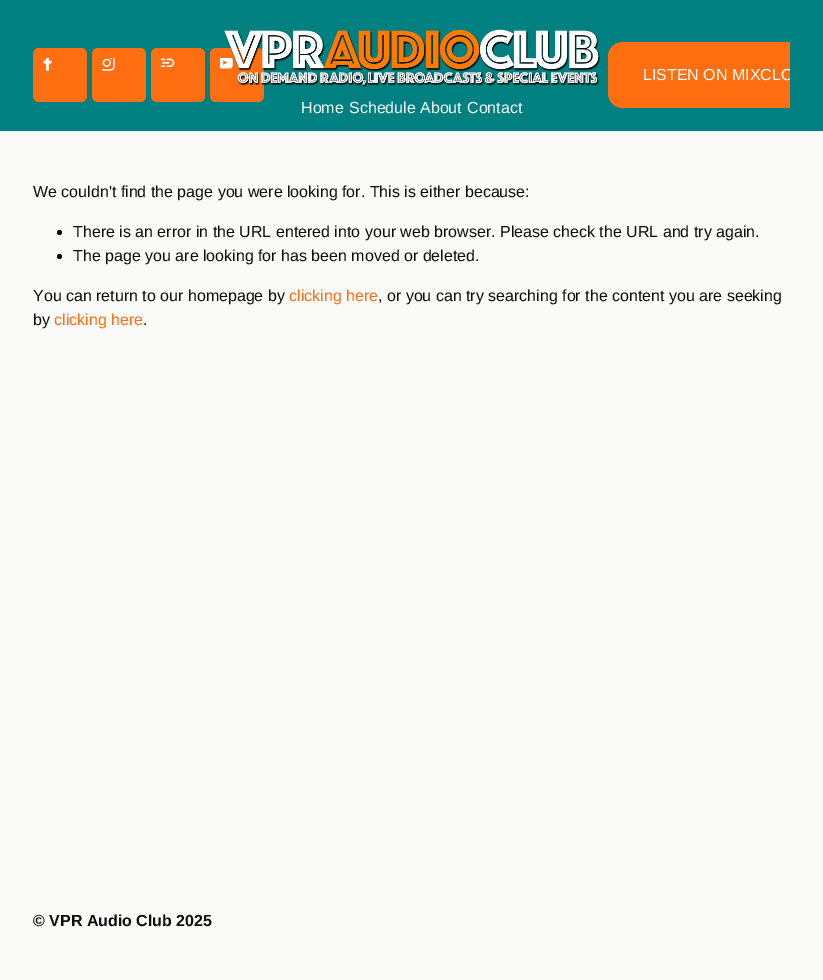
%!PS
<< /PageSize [823 980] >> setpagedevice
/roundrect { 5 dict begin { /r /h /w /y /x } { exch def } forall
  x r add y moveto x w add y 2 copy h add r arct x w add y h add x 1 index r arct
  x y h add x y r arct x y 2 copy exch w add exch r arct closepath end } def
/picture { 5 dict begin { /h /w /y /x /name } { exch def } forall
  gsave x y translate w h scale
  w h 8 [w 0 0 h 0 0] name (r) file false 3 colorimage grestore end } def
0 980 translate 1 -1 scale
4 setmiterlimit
0.98 0.98 0.976 setrgbcolor
0 0 823 980 rectfill
0 0.502 0.502 setrgbcolor
0 0 823 131 rectfill
1 0.435 0.071 setrgbcolor
33 48 54 54 6 roundrect fill
(img1.rgb) 43 58 9 13 picture
92 48 54 54 6 roundrect fill
(img2.rgb) 102 58 13 13 picture
151 48 54 54 6 roundrect fill
(img3.rgb) 161 58 14 10 picture
210 48 54 54 6 roundrect fill
(img4.rgb) 220 58 13 11 picture
newpath 623 42 moveto 790 42 lineto 790 108 lineto 623 108 lineto 614.5 108 608 101.5 608 93 curveto 608 57 lineto 608 48.5 614.5 42 623 42 curveto closepath fill
gsave
608 42 182 66 rectclip
/Arimo-Regular [16 0 0 -16 0 0] selectfont
1 setgray
643 80 moveto (LISTEN ON MIXCLO) show
grestore
(img5.rgb) 224 29 376 58 picture
/Arimo-Regular [16 0 0 -16 0 0] selectfont
0.98 0.98 0.976 setrgbcolor
301 113 moveto (Home) show
349 113 moveto (Schedule) show
420 113 moveto (About) show
467 113 moveto (Contact) show
0.051 setgray
33 197 moveto (We couldn't find the page you were looking for. This is either because:) show
newpath 59.5 232.5 2.5 0 360 arc closepath fill
73 237 moveto (There is an error in the URL entered into your web browser. Please check the URL and try again.) show
newpath 59.5 256.5 2.5 0 360 arc closepath fill
73 261 moveto (The page you are looking for has been moved or deleted.) show
33 301 moveto (You can return to our homepage by) show
1 0.435 0.071 setrgbcolor
289 301 moveto (clicking here) show
0.051 setgray
378 301 moveto (, or you can try searching for the content you are seeking) show
33 325 moveto (by) show
1 0.435 0.071 setrgbcolor
54 325 moveto (clicking here) show
0.051 setgray
143 325 moveto (.) show
/Arimo-Bold [16 0 0 -16 0 0] selectfont
33 926 moveto (© VPR Audio Club 2025) show
showpage
